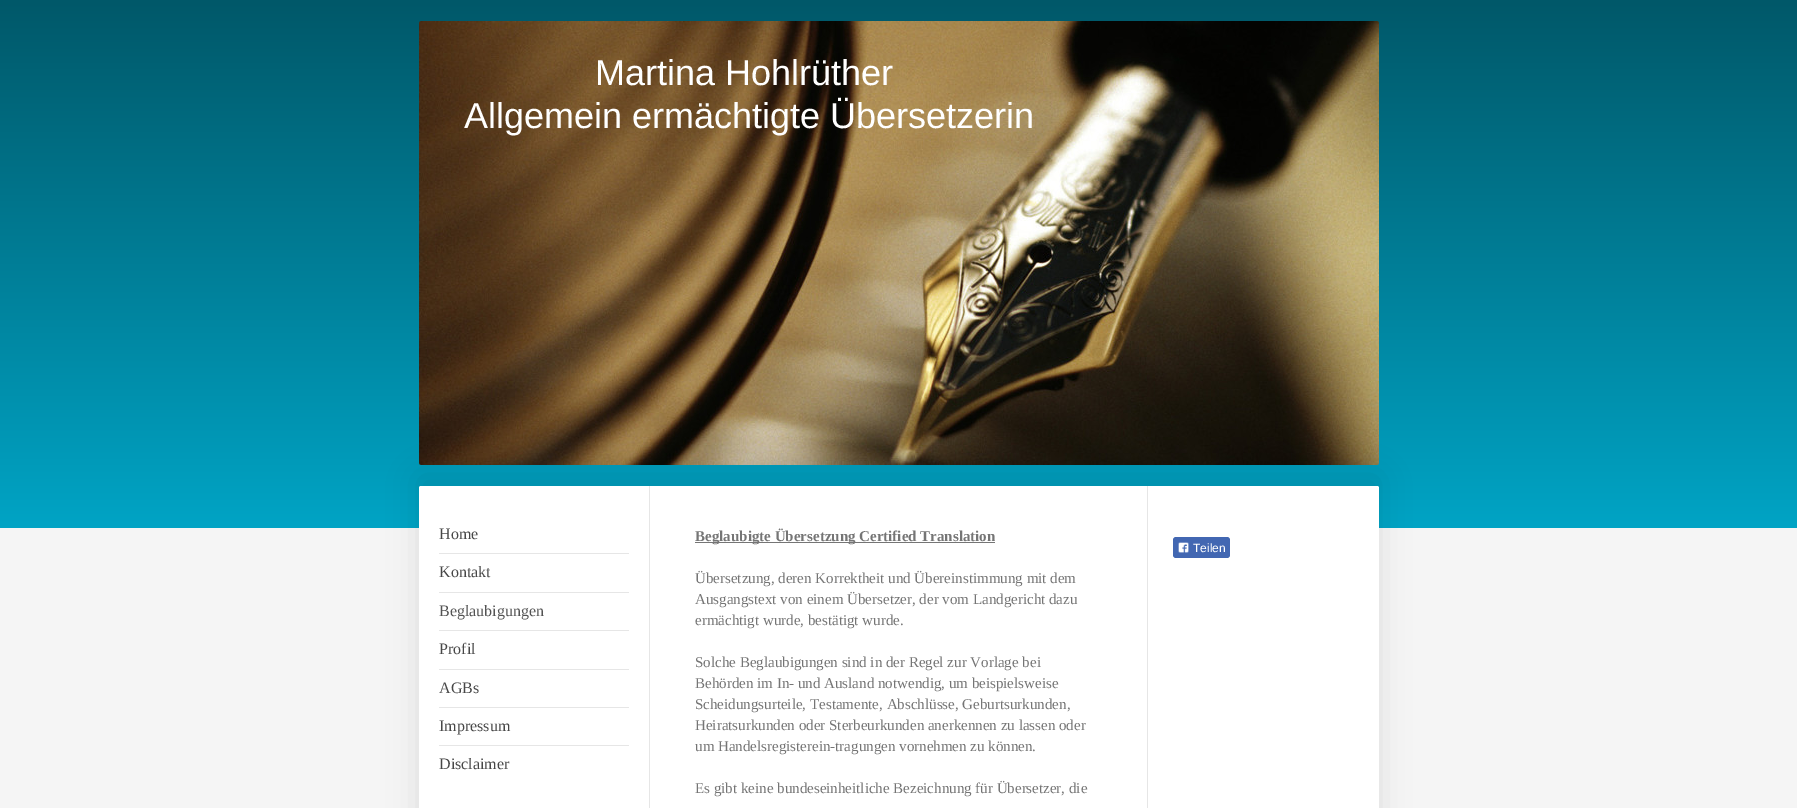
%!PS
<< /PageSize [1797 808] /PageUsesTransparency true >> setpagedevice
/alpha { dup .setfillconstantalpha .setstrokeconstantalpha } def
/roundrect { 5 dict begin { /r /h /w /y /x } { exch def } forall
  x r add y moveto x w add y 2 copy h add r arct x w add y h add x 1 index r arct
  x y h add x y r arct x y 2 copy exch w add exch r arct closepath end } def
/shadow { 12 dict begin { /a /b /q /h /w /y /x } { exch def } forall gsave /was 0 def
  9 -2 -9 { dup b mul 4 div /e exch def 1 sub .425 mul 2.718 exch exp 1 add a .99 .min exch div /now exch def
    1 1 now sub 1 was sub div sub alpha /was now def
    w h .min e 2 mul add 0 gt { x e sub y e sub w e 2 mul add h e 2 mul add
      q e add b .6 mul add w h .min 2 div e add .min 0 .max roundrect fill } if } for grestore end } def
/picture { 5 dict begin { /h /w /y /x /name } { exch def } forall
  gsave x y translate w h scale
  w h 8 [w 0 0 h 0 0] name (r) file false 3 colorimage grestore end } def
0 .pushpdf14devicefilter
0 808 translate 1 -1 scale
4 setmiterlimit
0.961 setgray
0 0 1797 808 rectfill
gsave newpath 0 0 moveto 1797 0 lineto 1797 528 lineto 0 528 lineto closepath clip newpath
<< /ShadingType 2 /ColorSpace /DeviceRGB /Coords [0 528 0 0] /Extend [true true] /Function << /FunctionType 2 /Domain [0 1] /C0 [0 0.643 0.773] /C1 [0 0.345 0.412] /N 1 >> >> shfill grestore
(img1.rgb) 419 21 960 444 picture
/LiberationSans-Regular [36 0 0 -36 0 0] selectfont
1 setgray
595 85 moveto (Martina Hohlrüther) show
464 128 moveto (Allgemein ermächtigte Übersetzerin) show
0 setgray
419 476 960 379 2 15 0.1 shadow
1 setgray
419 486 960 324 2 roundrect fill
0.902 setgray
439 553 190 1 rectfill
/LiberationSerif-Regular [16 0 0 -16 0 0] selectfont
0.278 setgray
439 539 moveto (Home) show
0.902 setgray
439 592 190 1 rectfill
0.278 setgray
439 577 moveto (Kontakt) show
0.902 setgray
439 630 190 1 rectfill
0.325 setgray
439 616 moveto (Beglaubigungen) show
0.902 setgray
439 669 190 1 rectfill
0.278 setgray
439 654 moveto (Profil) show
0.902 setgray
439 707 190 1 rectfill
0.278 setgray
439 693 moveto (AGBs) show
0.902 setgray
439 745 190 1 rectfill
0.278 setgray
439 731 moveto (Impressum) show
439 769 moveto (Disclaimer) show
0.902 setgray
1147 486 1 322 rectfill
649 486 1 322 rectfill
0.459 setgray
695 542 300 1 rectfill
/LiberationSerif-Bold [15 0 0 -15 0 0] selectfont
695 541 moveto (Beglaubigte Übersetzung Certified Translation) show
/LiberationSerif-Regular [15 0 0 -15 0 0] selectfont
695 583 moveto (Übersetzung, deren Korrektheit und Übereinstimmung mit dem) show
695 604 moveto (Ausgangstext von einem Übersetzer, der vom Landgericht dazu) show
695 625 moveto (ermächtigt wurde, bestätigt wurde.) show
695 667 moveto (Solche Beglaubigungen sind in der Regel zur Vorlage bei) show
695 688 moveto (Behörden im In- und Ausland notwendig, um beispielsweise) show
695 709 moveto (Scheidungsurteile, Testamente, Abschlüsse, Geburtsurkunden,) show
695 730 moveto (Heiratsurkunden oder Sterbeurkunden anerkennen zu lassen oder) show
695 751 moveto (um Handelsregisterein-tragungen vornehmen zu können.) show
695 793 moveto (Es gibt keine bundeseinheitliche Bezeichnung für Übersetzer, die) show
0.259 0.404 0.698 setrgbcolor
1173 537 57 21 3 roundrect fill
(img2.rgb) 1178 542 11 11 picture
/LiberationSans-Regular [12 0 0 -12 0 0] selectfont
1 setgray
1193 552 moveto (Teilen) show
.poppdf14devicefilter showpage
